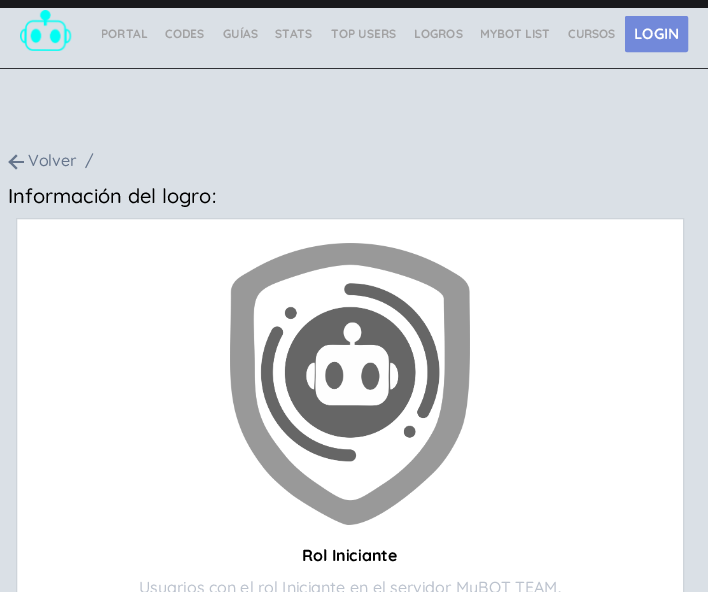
%!PS
<< /PageSize [708 592] >> setpagedevice
/roundrect { 5 dict begin { /r /h /w /y /x } { exch def } forall
  x r add y moveto x w add y 2 copy h add r arct x w add y h add x 1 index r arct
  x y h add x y r arct x y 2 copy exch w add exch r arct closepath end } def
/picture { 5 dict begin { /h /w /y /x /name } { exch def } forall
  gsave x y translate w h scale
  w h 8 [w 0 0 h 0 0] name (r) file false 3 colorimage grestore end } def
0 592 translate 1 -1 scale
4 setmiterlimit
0.094 0.098 0.11 setrgbcolor
0 0 708 592 rectfill
0.855 0.878 0.902 setrgbcolor
0 8 708 584 rectfill
0.184 0.192 0.212 setrgbcolor
0 68 708 1 rectfill
(img1.rgb) 20 10 52 41 picture
/Quicksand-Bold [12 0 0 -12 0 0] selectfont
0.635 0.635 0.639 setrgbcolor
101 38 moveto (PORTAL) show
165 38 moveto (CODES) show
223 38 moveto (GUÍAS) show
275 38 moveto (STATS) show
331 38 moveto (TOP USERS) show
414 38 moveto (LOGROS) show
480 38 moveto (MYBOT LIST) show
568 38 moveto (CURSOS) show
0.447 0.537 0.855 setrgbcolor
625.5 16.5 62 35 1.5 roundrect gsave fill grestore
stroke
/Quicksand-Bold [15 0 0 -15 0 0] selectfont
1 setgray
634 39 moveto (LOGIN) show
0.4 0.459 0.549 setrgbcolor
newpath 8.5 162 moveto 16 154.5 lineto 17.5 156 lineto 10 163.5 lineto closepath fill
newpath 8.5 162 moveto 10 160.5 lineto 17.5 168 lineto 16 169.5 lineto closepath fill
11 161 13 2 rectfill
/Quicksand-Medium [16 0 0 -16 0 0] selectfont
28 166 moveto (Volver) show
85 166 moveto (/) show
/Quicksand-Medium [20 0 0 -20 0 0] selectfont
0 setgray
8 203 moveto (Información del logro:) show
1 setgray
newpath 16.5 218.5 moveto 683.5 218.5 lineto 683.5 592.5 lineto 16.5 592.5 lineto closepath gsave fill grestore
0.808 0.831 0.855 setrgbcolor
stroke
(img2.rgb) 230 243 240 282 picture
/Quicksand-Bold [16 0 0 -16 0 0] selectfont
0 setgray
302 561 moveto (Rol Iniciante) show
/Quicksand-Medium [16 0 0 -16 0 0] selectfont
0.737 0.765 0.808 setrgbcolor
139 593 moveto (Usuarios con el rol Iniciante en el servidor MyBOT TEAM.) show
showpage
